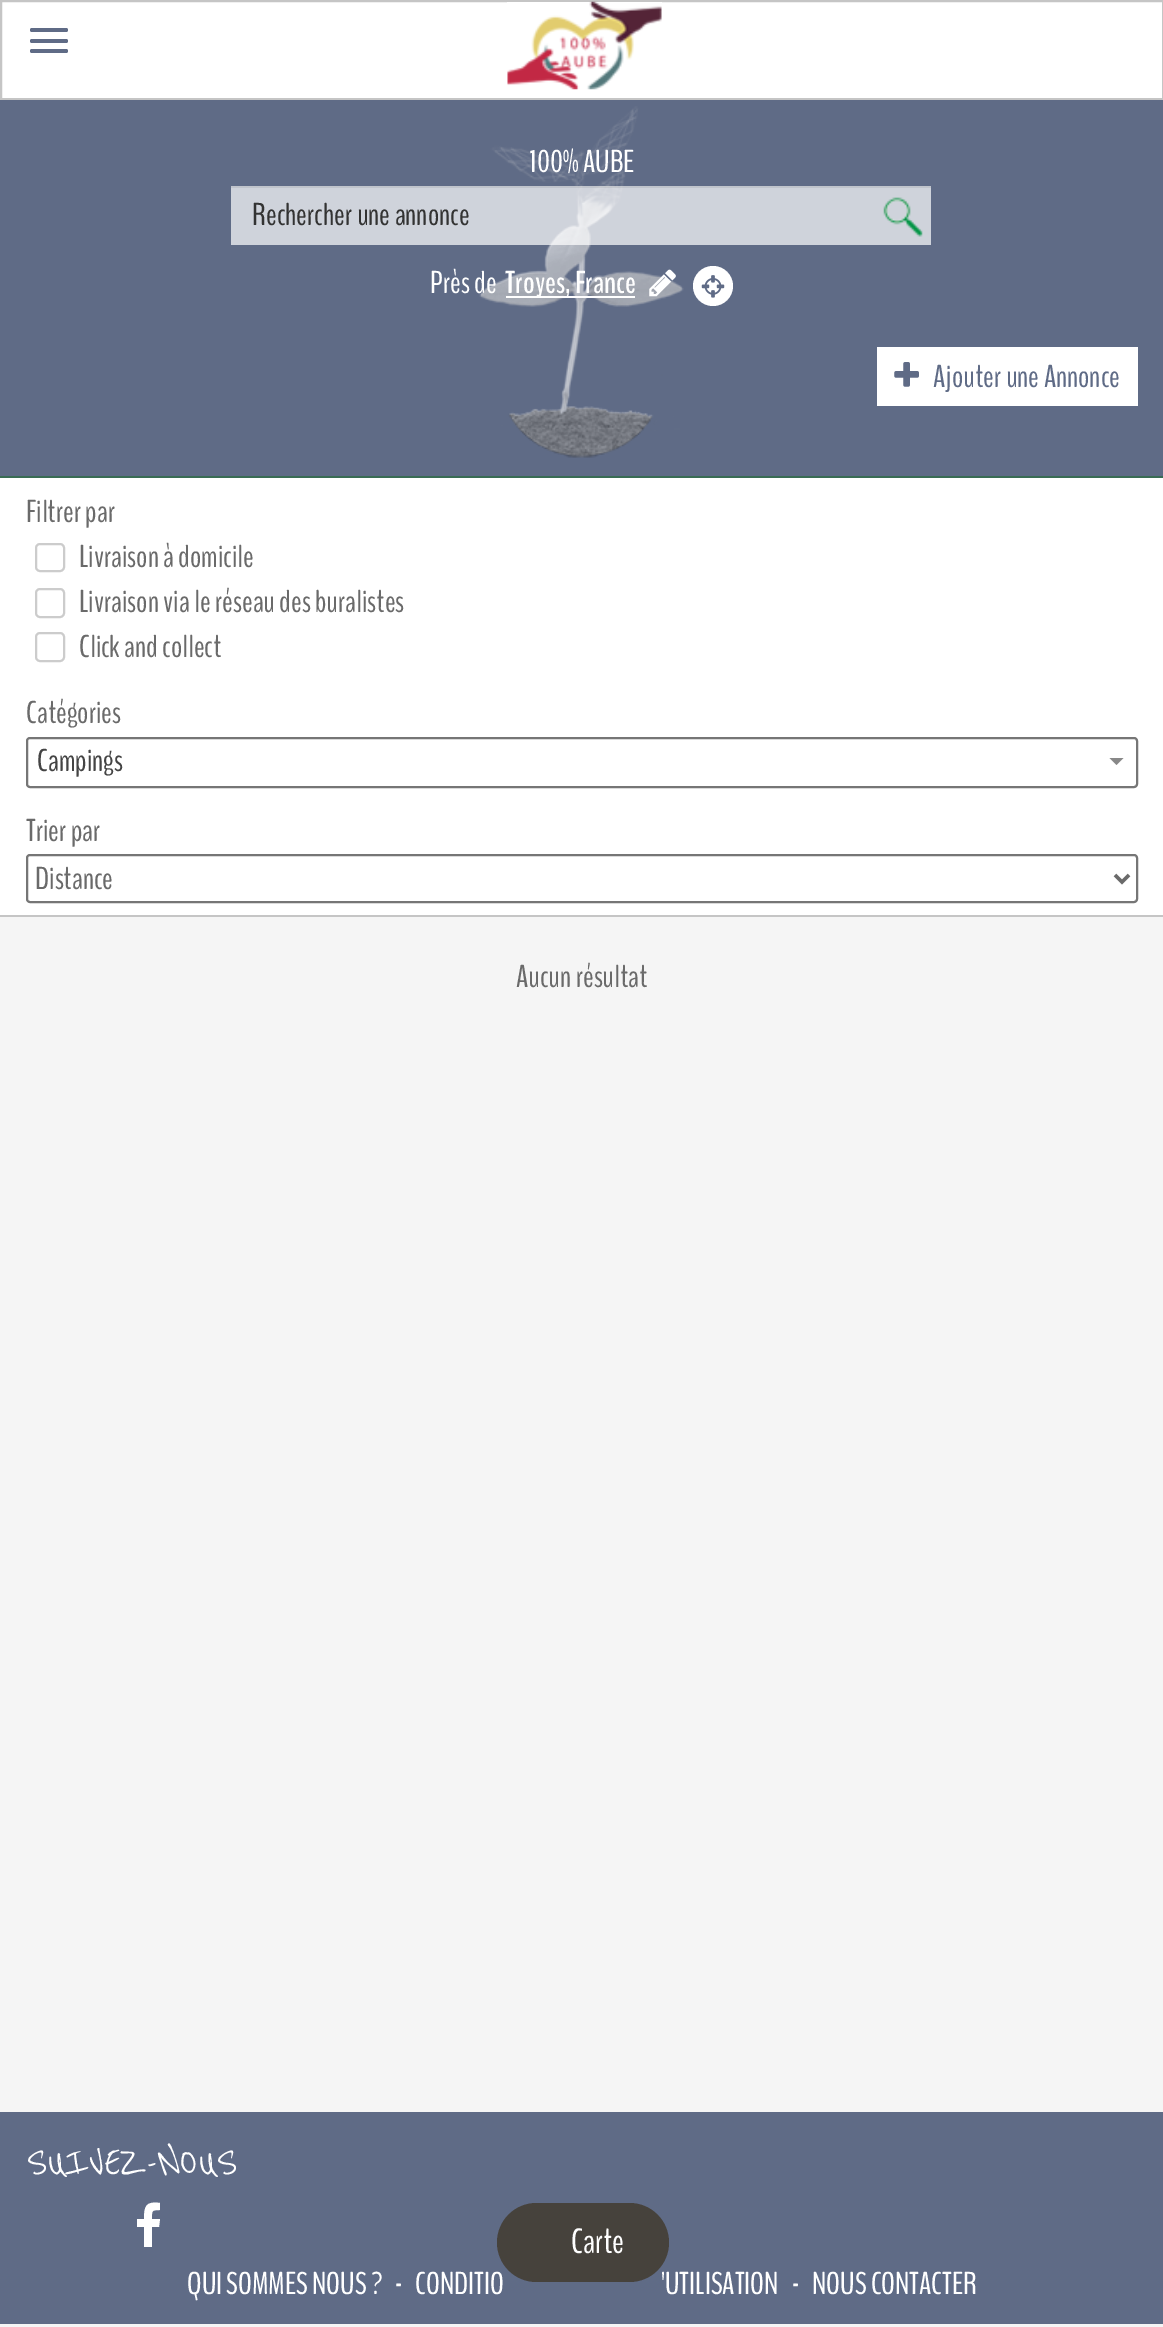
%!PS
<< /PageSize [1163 2327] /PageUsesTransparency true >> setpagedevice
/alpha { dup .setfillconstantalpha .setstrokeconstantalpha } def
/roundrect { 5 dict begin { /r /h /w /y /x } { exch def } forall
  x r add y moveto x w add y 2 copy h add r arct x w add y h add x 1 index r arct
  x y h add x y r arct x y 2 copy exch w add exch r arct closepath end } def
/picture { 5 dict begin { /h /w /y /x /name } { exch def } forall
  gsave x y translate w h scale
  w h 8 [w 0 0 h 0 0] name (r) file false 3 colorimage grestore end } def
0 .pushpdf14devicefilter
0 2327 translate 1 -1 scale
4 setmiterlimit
0.961 setgray
0 0 1163 2327 rectfill
1 setgray
newpath 1 1 moveto 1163 1 lineto 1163 99 lineto 1 99 lineto closepath gsave fill grestore
0.773 setgray
2 setlinewidth
stroke
0.373 0.42 0.525 setrgbcolor
30 28 38 4 2 roundrect fill
30 39 38 4 2 roundrect fill
30 49 38 4 2 roundrect fill
(img1.rgb) 507 1 155 89 picture
0 100 1163 376 rectfill
(img2.rgb) 479 106 205 352 picture
/BenchNine-Regular [31.5 0 0 -31.5 0 0] selectfont
1 setgray
529 172 moveto (100% AUBE) show
0.7 alpha
231 186 700 59 rectfill
0.07 alpha
0 setgray
231 186 700 2 rectfill
1 alpha
0.2 setgray
252 225 moveto (Rechercher une annonce) show
(img3.rgb) 883 197 40 40 picture
1 setgray
430 293 moveto (Près de) show
506 296 129 2 rectfill
/BenchNine-Bold [31.5 0 0 -31.5 0 0] selectfont
505 293 moveto (Troyes, France) show
(img4.rgb) 649 269 27 28 picture
newpath 713 286 20 0 360 arc closepath fill
(img5.rgb) 701 275 24 23 picture
877 347 261 59 rectfill
(img6.rgb) 894 362 25 25 picture
/BenchNine-Regular [31.5 0 0 -31.5 0 0] selectfont
0.373 0.42 0.525 setrgbcolor
933 387 moveto (Ajouter une Annonce) show
1 setgray
0 478 1163 437 rectfill
0.224 0.424 0.329 setrgbcolor
0 476 1163 2 rectfill
0.773 setgray
0 915 1163 2 rectfill
0.416 setgray
26 522 moveto (Filtrer par) show
0.8 setgray
36 544 28 27 4 roundrect stroke
0.416 setgray
79 567 moveto (Livraison à domicile) show
0.8 setgray
36 589 28 28 4 roundrect stroke
0.416 setgray
79 612 moveto (Livraison via le réseau des buralistes) show
0.8 setgray
36 633 28 28 4 roundrect stroke
0.416 setgray
79 657 moveto (Click and collect) show
26 723 moveto (Catégories) show
0.463 setgray
27 738 1110 49 3 roundrect stroke
0.267 setgray
37 771 moveto (Campings) show
0.533 setgray
newpath 1109.5 758 moveto 1123.5 758 lineto 1116.5 765 lineto closepath fill
0.416 setgray
26 841 moveto (Trier par) show
0.463 setgray
27 855 1110 47 3 roundrect stroke
0.416 setgray
3.5 setlinewidth
newpath 1115 875 moveto 1122 882 lineto 1129 875 lineto stroke
35 889 moveto (Distance) show
516 987 moveto (Aucun résultat) show
0.373 0.42 0.525 setrgbcolor
0 2112 1163 212 rectfill
1 setgray
415 2294 moveto (CONDITIO) show
661 2294 moveto ('UTILISATION) show
0.275 0.259 0.235 setrgbcolor
497 2203 172 79 39.5 roundrect fill
/BenchNine-Regular [35 0 0 -35 0 0] selectfont
1 setgray
571 2253 moveto (Carte) show
/ReenieBeanie-Medium [45.5 0 0 -45.5 0 0] selectfont
26 2174 moveto (SUIVEZ-NOUS) show
newpath 160 2203 moveto 160 2210 lineto 151 2210 152 2211 152 2219 curveto 160 2219 lineto 159 2227 lineto 152 2227 lineto 152 2247 lineto 144 2247 lineto 144 2227 lineto 137 2227 lineto 137 2219 lineto 144 2219 lineto 144 2206 146 2201 160 2203 curveto closepath fill
/BenchNine-Regular [31.5 0 0 -31.5 0 0] selectfont
187 2294 moveto (QUI SOMMES NOUS ?) show
395 2294 moveto (-) show
792 2294 moveto (-) show
812 2294 moveto (NOUS CONTACTER) show
.poppdf14devicefilter showpage
